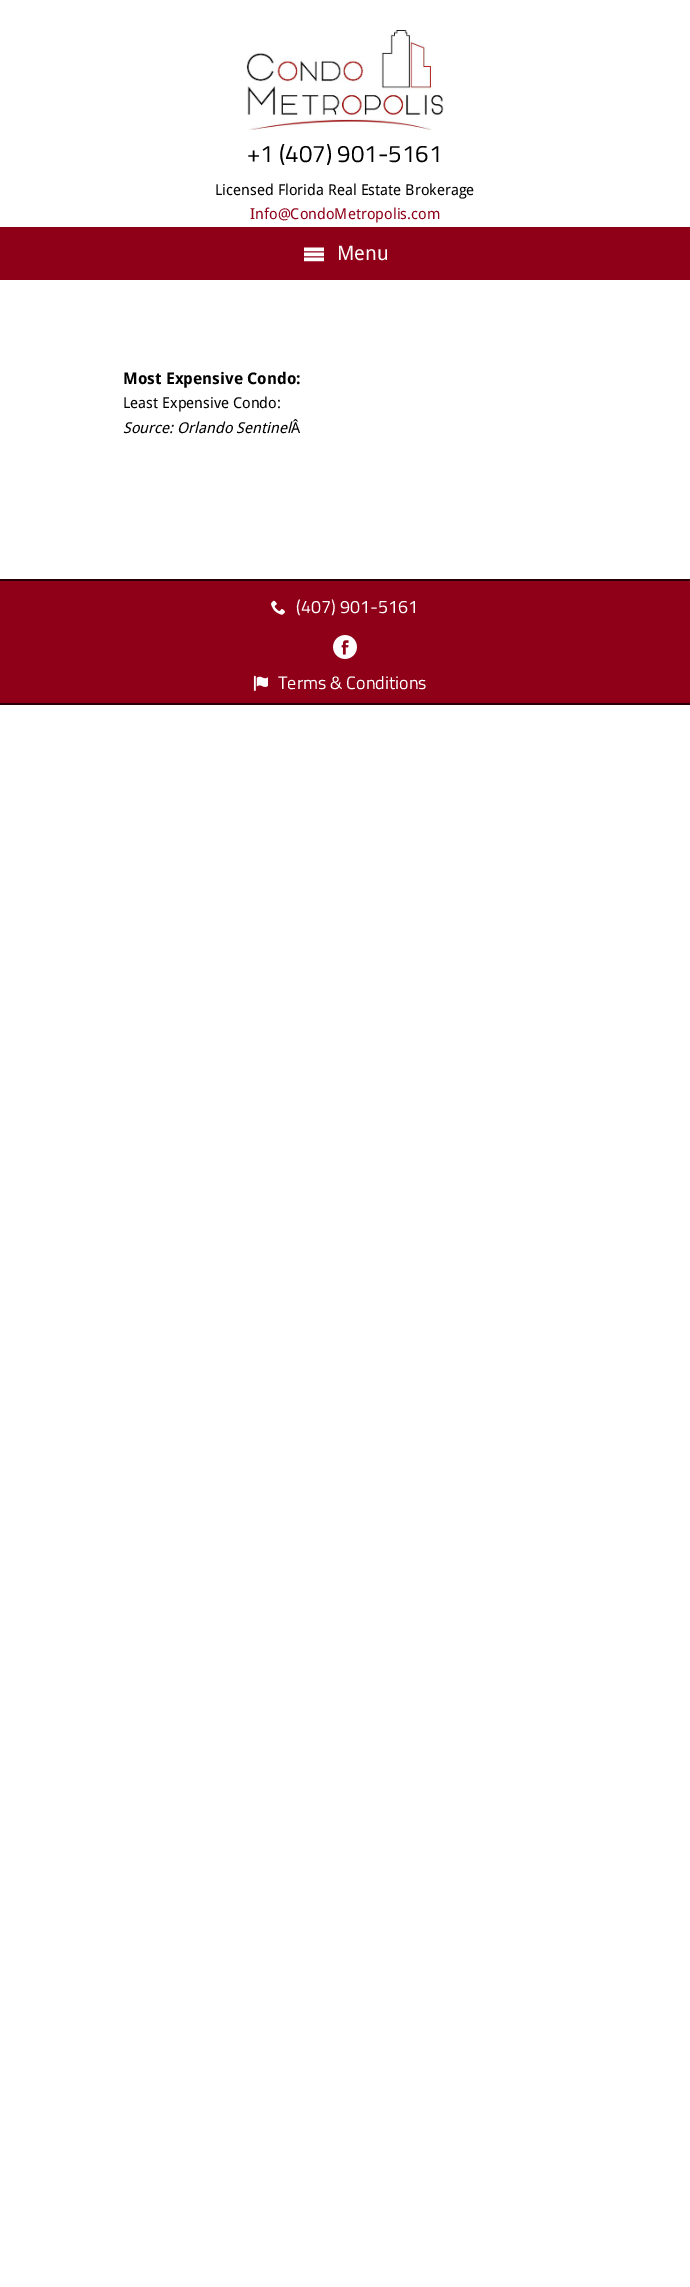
%!PS
<< /PageSize [690 2287] >> setpagedevice
/picture { 5 dict begin { /h /w /y /x /name } { exch def } forall
  gsave x y translate w h scale
  w h 8 [w 0 0 h 0 0] name (r) file false 3 colorimage grestore end } def
0 2287 translate 1 -1 scale
4 setmiterlimit
1 setgray
0 0 690 2287 rectfill
(img1.rgb) 246 30 198 100 picture
/TitilliumWeb-Regular [24 0 0 -24 0 0] selectfont
0 setgray
247 162 moveto (+1 \(407\) 901-5161) show
/DroidSans-Regular [15 0 0 -15 0 0] selectfont
215 195 moveto (Licensed Florida Real Estate Brokerage) show
0.561 0 0.094 setrgbcolor
250 219 moveto (Info@CondoMetropolis.com) show
0 227 690 53 rectfill
(img2.rgb) 304 247 20 15 picture
/DroidSans-Regular [20 0 0 -20 0 0] selectfont
1 setgray
337 260 moveto (Menu) show
/DroidSans-Bold [16 0 0 -16 0 0] selectfont
0 setgray
123 384 moveto (Most Expensive Condo:) show
/DroidSans-Regular [15 0 0 -15 0 0] selectfont
123 408 moveto (Least Expensive Condo:) show
/DroidSans-Italic [15 0 0 -15 0 0] selectfont
123 433 moveto (Source: Orlando Sentinel) show
/DroidSans-Regular [15 0 0 -15 0 0] selectfont
291 433 moveto (Â) show
0.561 0 0.094 setrgbcolor
0 581 690 122 rectfill
0.161 0 0.027 setrgbcolor
0 579 690 2 rectfill
0 703 690 2 rectfill
(img3.rgb) 271 600 14 15 picture
/TitilliumWeb-Regular [18 0 0 -18 0 0] selectfont
1 setgray
296 613 moveto (\(407\) 901-5161) show
(img4.rgb) 333 635 24 24 picture
(img5.rgb) 253 675 15 16 picture
278 689 moveto (Terms & Conditions) show
showpage
